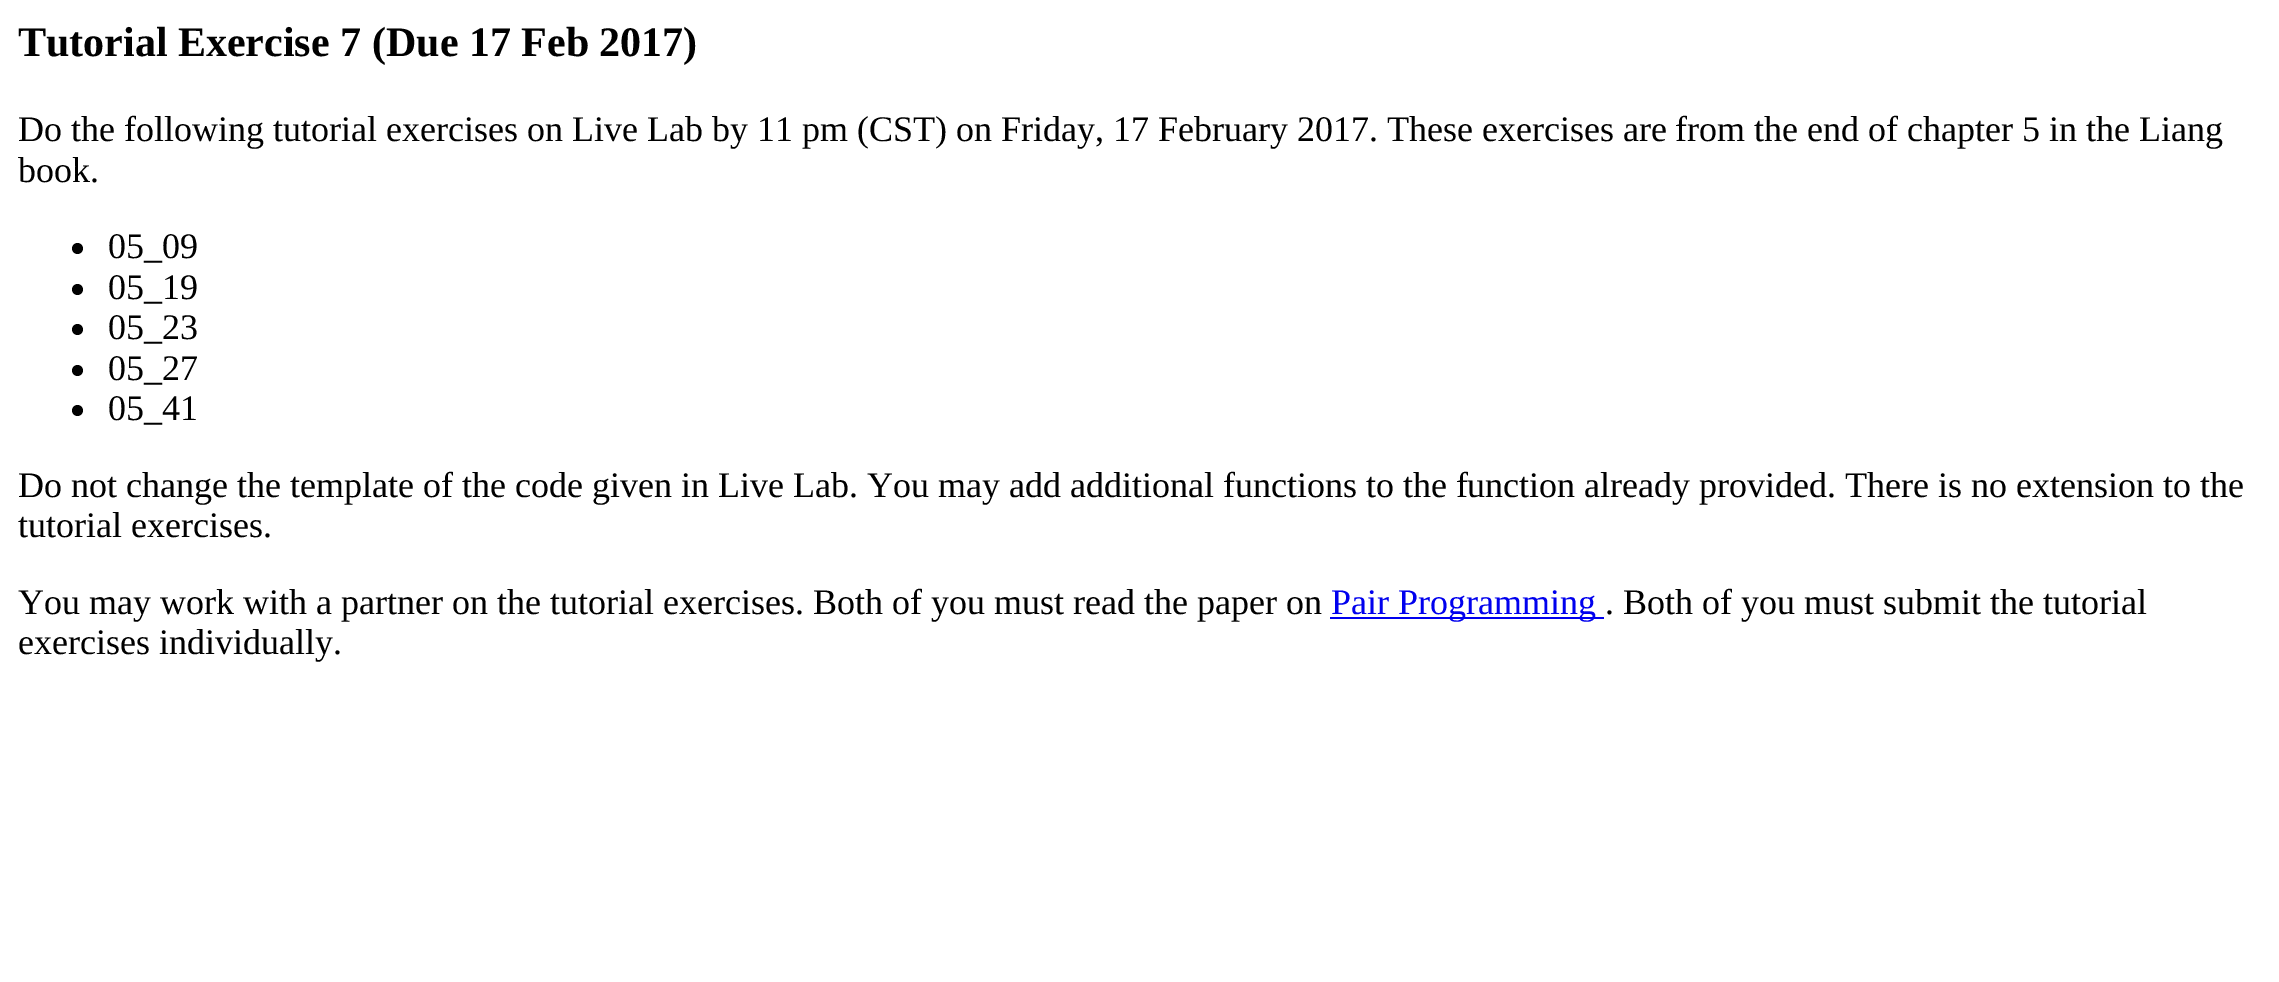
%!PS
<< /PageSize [2279 982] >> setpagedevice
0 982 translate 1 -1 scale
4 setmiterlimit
1 setgray
0 0 2279 982 rectfill
/LiberationSerif-Bold [42 0 0 -42 0 0] selectfont
0 setgray
18 56 moveto (Tutorial Exercise 7) show
372 56 moveto (\(Due 17 Feb 2017\)) show
/LiberationSerif-Regular [36 0 0 -36 0 0] selectfont
18 141 moveto (Do the following tutorial exercises on Live Lab by 11 pm \(CST\) on Friday, 17 February 2017. These exercises are from the end of chapter 5 in the Liang) show
18 182 moveto (book.) show
newpath 77.5 248.5 5.5 0 360 arc closepath fill
108 258 moveto (05_09) show
newpath 77.5 289.5 5.5 0 360 arc closepath fill
108 299 moveto (05_19) show
newpath 77.5 329.5 5.5 0 360 arc closepath fill
108 339 moveto (05_23) show
newpath 77.5 370.5 5.5 0 360 arc closepath fill
108 380 moveto (05_27) show
newpath 77.5 410.5 5.5 0 360 arc closepath fill
108 420 moveto (05_41) show
18 497 moveto (Do not change the template of the code given in Live Lab. You may add additional functions to the function already provided. There is no extension to the) show
18 537 moveto (tutorial exercises.) show
18 614 moveto (You may work with a partner on the tutorial exercises. Both of you must read the paper on) show
0 0 0.933 setrgbcolor
1330 617 274 2 rectfill
1331 614 moveto (Pair Programming) show
0 setgray
1605 614 moveto (. Both of you must submit the tutorial) show
18 654 moveto (exercises individually.) show
showpage
